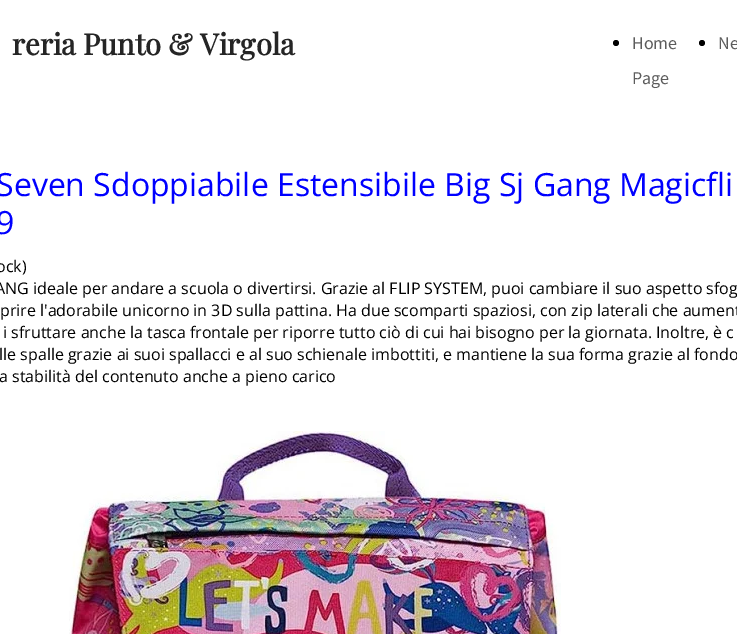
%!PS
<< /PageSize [737 634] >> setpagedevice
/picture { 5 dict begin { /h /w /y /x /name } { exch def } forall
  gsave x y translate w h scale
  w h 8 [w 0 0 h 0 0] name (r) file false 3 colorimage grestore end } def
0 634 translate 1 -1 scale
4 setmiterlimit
1 setgray
0 0 737 634 rectfill
/PlayfairDisplay-Bold [29.25 0 0 -29.25 0 0] selectfont
0.145 setgray
12 55 moveto (reria Punto & Virgola) show
0 setgray
newpath 616 43 3 0 360 arc closepath fill
/SourceSansPro-Regular [18 0 0 -18 0 0] selectfont
0.361 setgray
632 49 moveto (Home) show
632 84 moveto (Page) show
0 setgray
newpath 702 43 3 0 360 arc closepath fill
0.361 setgray
718 49 moveto (Ne) show
/OpenSans-Regular [32 0 0 -32 0 0] selectfont
0 0 1 setrgbcolor
-4 196 moveto (Seven Sdoppiabile Estensibile Big Sj Gang Magicfli) show
-4 234 moveto (9) show
/OpenSans-Regular [16 0 0 -16 0 0] selectfont
0 setgray
-4 272 moveto (ock\)) show
-5 294 moveto (ANG ideale per andare a scuola o divertirsi. Grazie al FLIP SYSTEM, puoi cambiare il suo aspetto sfog) show
0 316 moveto (prire l'adorabile unicorno in 3D sulla pattina. Ha due scomparti spaziosi, con zip laterali che aument) show
3 338 moveto (i sfruttare anche la tasca frontale per riporre tutto ciò di cui hai bisogno per la giornata. Inoltre, è c) show
-1 360 moveto (lle spalle grazie ai suoi spallacci e al suo schienale imbottiti, e mantiene la sua forma grazie al fondo) show
-1 382 moveto (a stabilità del contenuto anche a pieno carico) show
(img1.rgb) 69 431 492 203 picture
showpage
